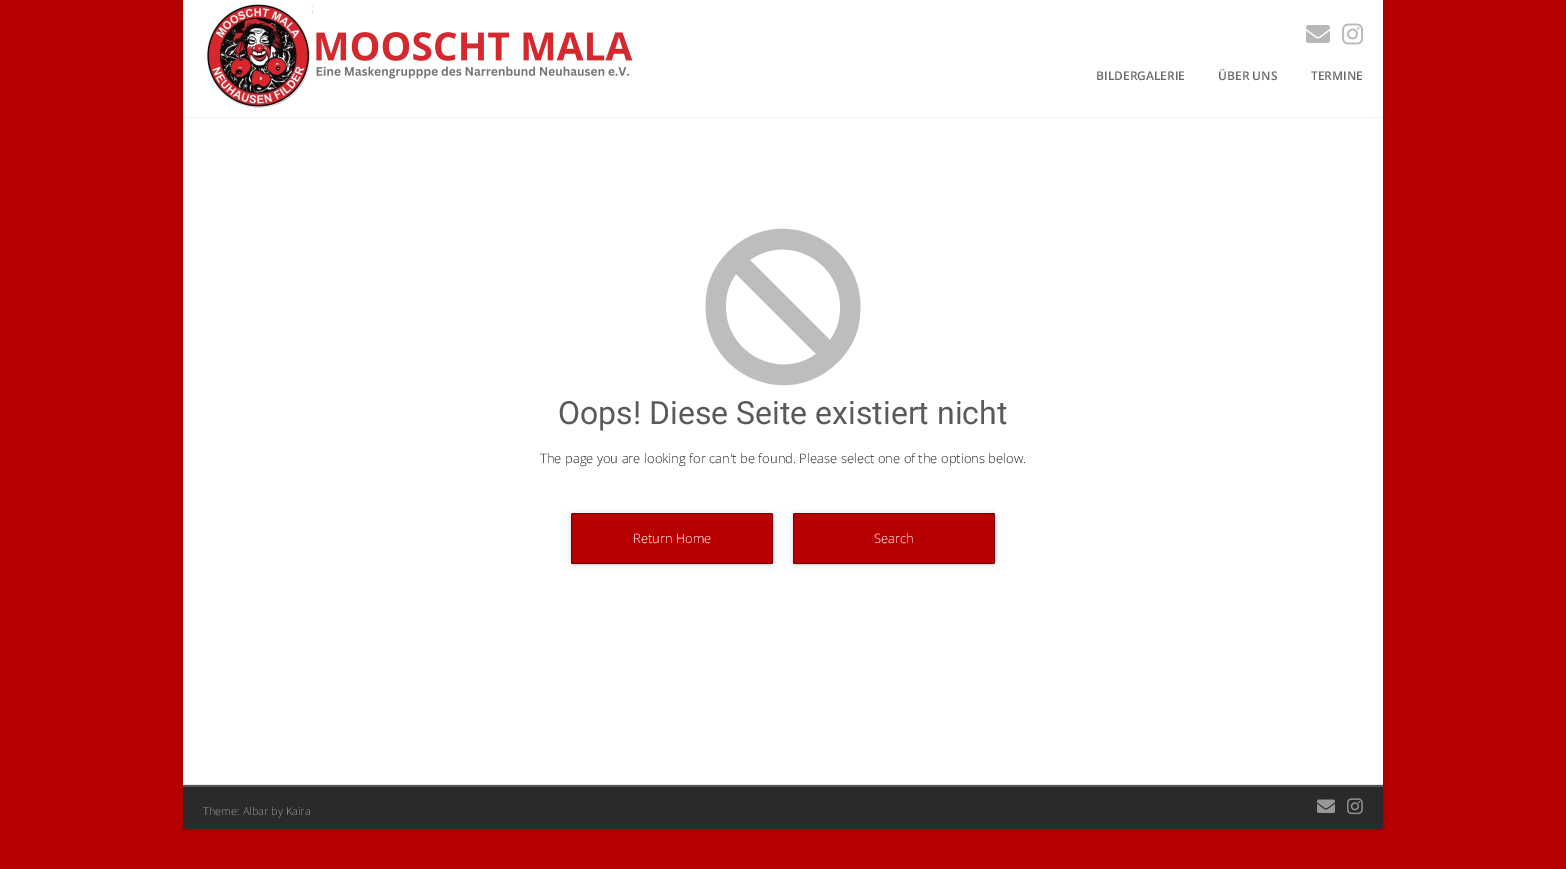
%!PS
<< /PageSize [1566 869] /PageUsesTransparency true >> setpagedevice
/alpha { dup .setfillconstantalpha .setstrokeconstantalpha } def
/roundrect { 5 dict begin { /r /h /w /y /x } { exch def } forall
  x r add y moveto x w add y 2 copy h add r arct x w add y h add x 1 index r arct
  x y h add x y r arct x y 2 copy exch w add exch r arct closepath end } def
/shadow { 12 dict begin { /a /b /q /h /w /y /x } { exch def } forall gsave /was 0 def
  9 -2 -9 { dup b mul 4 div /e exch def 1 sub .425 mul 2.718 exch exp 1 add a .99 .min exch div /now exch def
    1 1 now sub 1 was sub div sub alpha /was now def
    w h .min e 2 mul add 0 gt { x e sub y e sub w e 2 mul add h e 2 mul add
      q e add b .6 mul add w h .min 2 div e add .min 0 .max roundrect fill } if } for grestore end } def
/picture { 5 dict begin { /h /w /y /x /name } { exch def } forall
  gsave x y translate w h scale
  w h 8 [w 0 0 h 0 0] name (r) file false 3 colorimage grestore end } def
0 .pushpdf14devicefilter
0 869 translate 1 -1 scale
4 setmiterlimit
0.722 0 0.008 setrgbcolor
0 0 1566 869 rectfill
0 setgray
183 1 1200 829 0 2.5 0.2 shadow
1 setgray
183 0 1200 784 rectfill
0.941 setgray
183 117 1200 1 rectfill
(img1.rgb) 206 4 427 104 picture
(img2.rgb) 1306 25 24 18 picture
(img3.rgb) 1342 23 21 22 picture
/OpenSans-SemiBold [12 0 0 -12 0 0] selectfont
0.412 setgray
1096 80 moveto (BILDERGALERIE) show
1218 80 moveto (ÜBER UNS) show
1311 80 moveto (TERMINE) show
0.741 setgray
newpath 728 252 moveto 780 200 867 242 860 315 curveto 859 333 851 349 838 362 curveto 786 414 699 372 706 299 curveto 707 281 715 265 728 252 curveto closepath 840 303 moveto 837 259 786 234 750 260 curveto 830 340 lineto 838 329 841 317 840 303 curveto closepath 726 311 moveto 729 355 780 380 816 354 curveto 736 274 lineto 728 285 725 297 726 311 curveto closepath fill
/Roboto-Regular [32 0 0 -32 0 0] selectfont
0.353 setgray
558 424 moveto (Oops! Diese Seite existiert nicht) show
/OpenSans-Light [13 0 0 -13 0 0] selectfont
0.118 0.141 0.114 setrgbcolor
540 463 moveto (The page you are looking for can't be found. Please select one of the options below.) show
0 setgray
571 514 202 51 2 3 0.15 shadow
0.722 0 0.008 setrgbcolor
571 513 202 51 2 roundrect fill
0.3 alpha
0 setgray
571.5 513.5 201 50 1.5 roundrect stroke
1 alpha
1 setgray
633 543 moveto (Return Home) show
0 setgray
793 514 202 51 2 3 0.15 shadow
0.722 0 0.008 setrgbcolor
793 513 202 51 2 roundrect fill
0.3 alpha
0 setgray
793.5 513.5 201 50 1.5 roundrect stroke
1 alpha
1 setgray
874 543 moveto (Search) show
0.906 setgray
183 784 1200 1 rectfill
0.165 setgray
183 787 1200 42 rectfill
0.333 setgray
183 786 1200 1 rectfill
0.325 setgray
183 785 1200 1 rectfill
/OpenSans-Light [11 0 0 -11 0 0] selectfont
0.592 setgray
203 815 moveto (Theme: Albar by Kaira) show
(img4.rgb) 1317 799 18 14 picture
(img5.rgb) 1347 798 16 17 picture
.poppdf14devicefilter showpage
